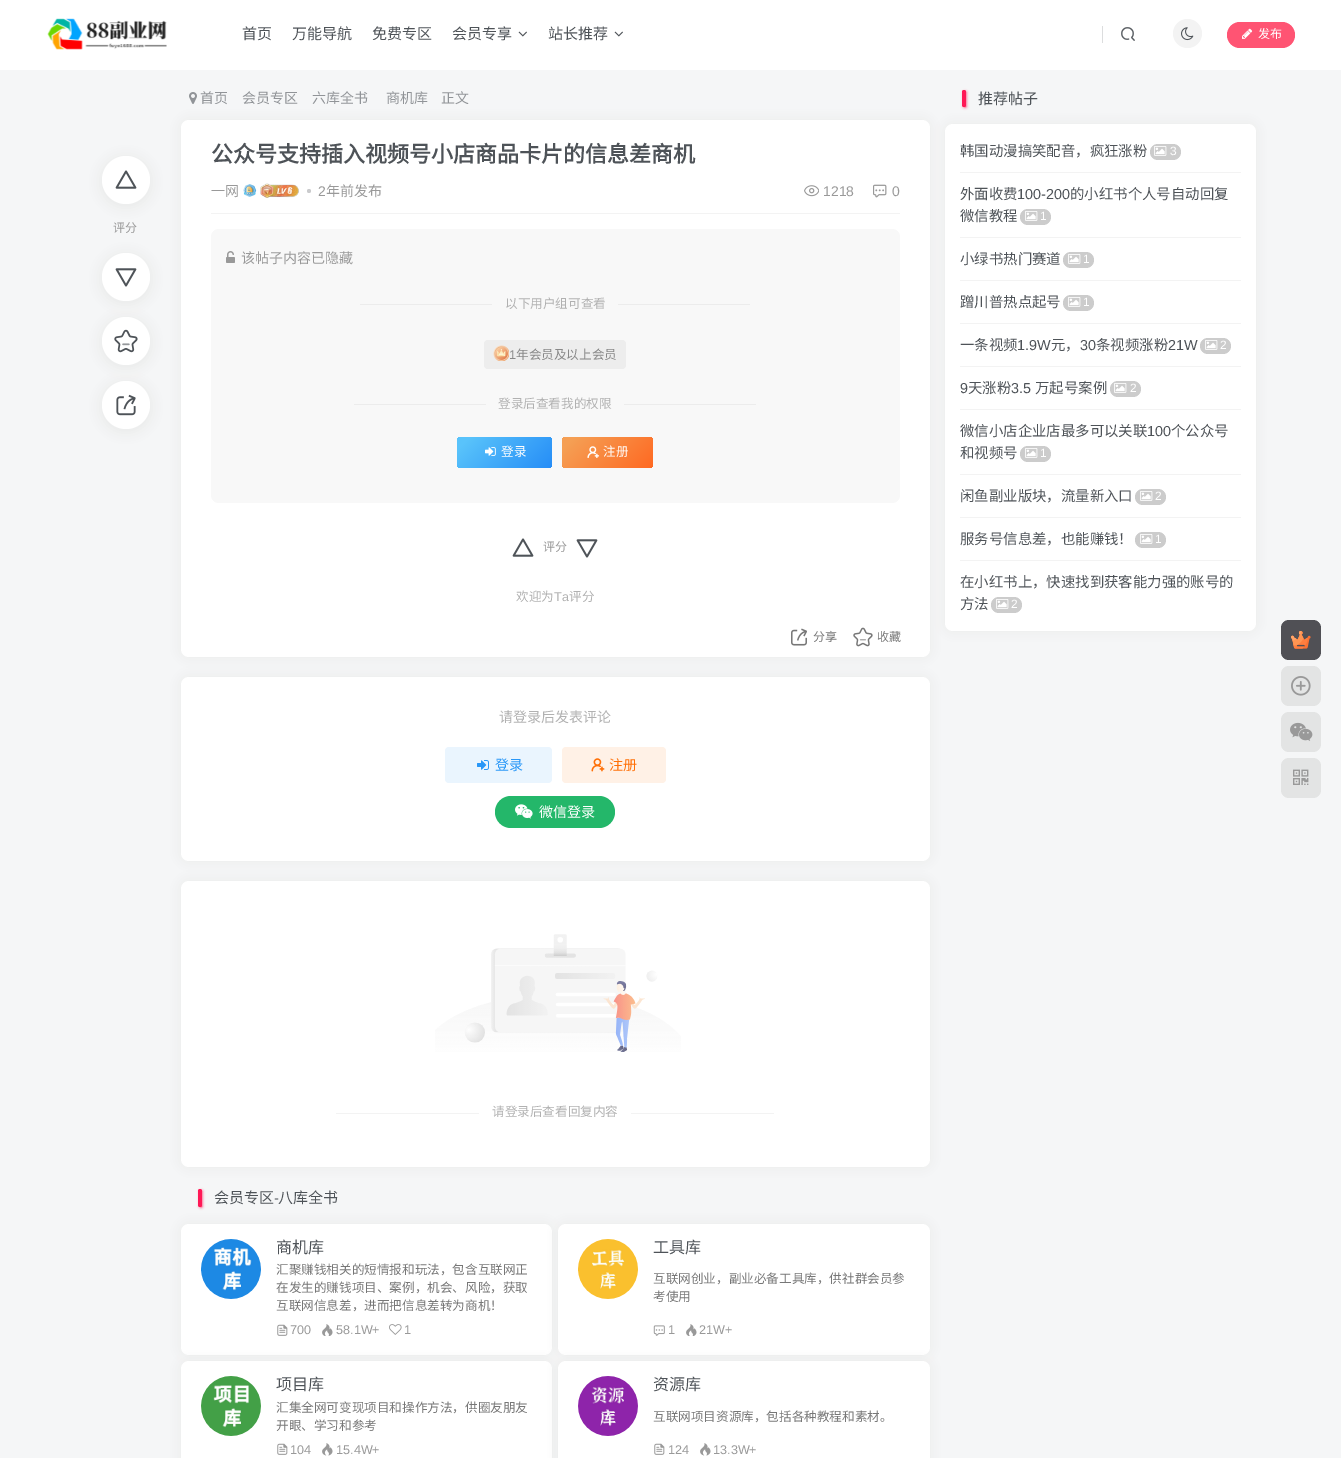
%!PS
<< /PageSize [1341 1458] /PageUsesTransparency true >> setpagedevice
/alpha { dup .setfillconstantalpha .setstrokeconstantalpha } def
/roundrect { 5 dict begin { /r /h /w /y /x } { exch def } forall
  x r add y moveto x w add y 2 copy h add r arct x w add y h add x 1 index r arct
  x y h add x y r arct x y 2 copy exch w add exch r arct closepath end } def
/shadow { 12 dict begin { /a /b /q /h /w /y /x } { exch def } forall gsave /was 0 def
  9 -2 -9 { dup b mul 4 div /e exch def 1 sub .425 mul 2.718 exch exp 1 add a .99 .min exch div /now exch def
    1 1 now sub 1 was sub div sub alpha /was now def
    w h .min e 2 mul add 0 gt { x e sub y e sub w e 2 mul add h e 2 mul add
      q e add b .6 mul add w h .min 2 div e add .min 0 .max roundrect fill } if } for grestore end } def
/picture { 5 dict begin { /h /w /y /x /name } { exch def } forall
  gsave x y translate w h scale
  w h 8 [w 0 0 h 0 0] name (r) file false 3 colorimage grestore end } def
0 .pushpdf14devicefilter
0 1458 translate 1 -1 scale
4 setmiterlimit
0.961 0.965 0.969 setrgbcolor
0 0 1341 1458 rectfill
1 setgray
0 0 1341 70 rectfill
(img1.rgb) 47 18 120 32 picture
/NotoSansCJKSC-Regular [15 0 0 -15 0 0] selectfont
0.306 0.325 0.345 setrgbcolor
242 39 moveto (首页) show
292 39 moveto (万能导航) show
372 39 moveto (免费专区) show
452 39 moveto (会员专享) show
(img2.rgb) 518 31 9 6 picture
548 39 moveto (站长推荐) show
(img2.rgb) 614 31 9 6 picture
0.863 0.867 0.871 setrgbcolor
1102 26 1 17 rectfill
(img3.rgb) 1121 27 14 14 picture
0.953 setgray
newpath 1187.5 33.5 14.5 0 360 arc closepath fill
(img4.rgb) 1181 27 13 14 picture
1 0.329 0.451 setrgbcolor
1227 22 68 26 13 roundrect fill
(img5.rgb) 1242 28 11 11 picture
/NotoSansCJKSC-Regular [12 0 0 -12 0 0] selectfont
1 setgray
1258 38 moveto (发布) show
0.455 setgray
100 156 52 52 26 5 0.08 shadow
1 setgray
newpath 126 180 24 0 360 arc closepath fill
(img6.rgb) 115 170 22 19 picture
0.6 setgray
113 232 moveto (评分) show
0.455 setgray
100 253 52 52 26 5 0.08 shadow
1 setgray
newpath 126 277 24 0 360 arc closepath fill
(img7.rgb) 115 268 22 19 picture
0.455 setgray
100 317 52 52 26 5 0.08 shadow
1 setgray
newpath 126 341 24 0 360 arc closepath fill
(img8.rgb) 114 329 24 24 picture
0.455 setgray
100 381 52 52 26 5 0.08 shadow
1 setgray
newpath 126 405 24 0 360 arc closepath fill
(img9.rgb) 116 394 20 22 picture
(img10.rgb) 189 92 8 12 picture
/NotoSansCJKSC-Regular [14 0 0 -14 0 0] selectfont
0.569 0.58 0.596 setrgbcolor
200 103 moveto (首页) show
242 103 moveto (会员专区) show
312 103 moveto (六库全书) show
386 103 moveto (商机库) show
441 103 moveto (正文) show
0.455 setgray
945 124 311 507 8 5 0.08 shadow
1 setgray
945 124 311 507 8 roundrect fill
0.455 setgray
181 120 749 537 8 5 0.08 shadow
1 setgray
181 120 749 537 8 roundrect fill
0.953 setgray
211 213 689 1 rectfill
/NotoSansCJKSC-Bold [22 0 0 -22 0 0] selectfont
0.306 0.325 0.345 setrgbcolor
211 162 moveto (公众号支持插入视频号小店商品卡片的信息差商机) show
/NotoSansCJKSC-Regular [14 0 0 -14 0 0] selectfont
0.6 setgray
211 196 moveto (一网) show
(img11.rgb) 243 184 14 13 picture
(img12.rgb) 260 183 39 15 picture
0.792 0.796 0.804 setrgbcolor
newpath 309 191 2 0 360 arc closepath fill
/LiberationSans-Regular [14 0 0 -14 0 0] selectfont
0.6 setgray
318 196 moveto (2) show
/NotoSansCJKSC-Regular [14 0 0 -14 0 0] selectfont
326 196 moveto (年前发布) show
(img13.rgb) 804 185 15 12 picture
/LiberationSans-Regular [14 0 0 -14 0 0] selectfont
823 196 moveto (1218) show
(img14.rgb) 873 184 14 14 picture
892 196 moveto (0) show
0.973 setgray
211 229 689 274 8 roundrect fill
(img15.rgb) 226 251 9 12 picture
/NotoSansCJKSC-Regular [14 0 0 -14 0 0] selectfont
0.6 setgray
241 263 moveto (该帖子内容已隐藏) show
0.925 setgray
360 304 132 1 rectfill
/NotoSansCJKSC-Regular [12.6 0 0 -12.6 0 0] selectfont
0.694 setgray
505 308 moveto (以下用户组可查看) show
0.925 setgray
618 304 132 1 rectfill
0.929 setgray
484 340 142 29 4 roundrect fill
(img16.rgb) 493 345 16 16 picture
/LiberationSans-Regular [12.6 0 0 -12.6 0 0] selectfont
0.533 setgray
509 359 moveto (1) show
/NotoSansCJKSC-Regular [12.6 0 0 -12.6 0 0] selectfont
516 359 moveto (年会员及以上会员) show
0.925 setgray
354 404 132 1 rectfill
0.694 setgray
498 408 moveto (登录后查看我的权限) show
0.925 setgray
624 404 132 1 rectfill
gsave 457 437 95 31 4 roundrect clip newpath
<< /ShadingType 2 /ColorSpace /DeviceRGB /Coords [473 421 536 484] /Extend [true true] /Function << /FunctionType 3 /Domain [0 1] /Functions [<< /FunctionType 2 /Domain [0 1] /C0 [0.349 0.765 0.984] /C1 [0.349 0.765 0.984] /N 1 >> << /FunctionType 2 /Domain [0 1] /C0 [0.349 0.765 0.984] /C1 [0.149 0.553 0.969] /N 1 >>] /Bounds [0.1] /Encode [0 1 0 1] >> >> shfill grestore
(img17.rgb) 485 447 11 9 picture
1 setgray
501 456 moveto (登录) show
gsave 562 437 91 31 4 roundrect clip newpath
<< /ShadingType 2 /ColorSpace /DeviceRGB /Coords [577 422 638 483] /Extend [true true] /Function << /FunctionType 3 /Domain [0 1] /Functions [<< /FunctionType 2 /Domain [0 1] /C0 [0.961 0.624 0.329] /C1 [0.961 0.624 0.329] /N 1 >> << /FunctionType 2 /Domain [0 1] /C0 [0.961 0.624 0.329] /C1 [1 0.412 0.133] /N 1 >>] /Bounds [0.1] /Encode [0 1 0 1] >> >> shfill grestore
(img18.rgb) 587 446 13 12 picture
603 456 moveto (注册) show
(img6.rgb) 512 538 22 19 picture
/NotoSansCJKSC-Regular [12 0 0 -12 0 0] selectfont
0.6 setgray
543 551 moveto (评分) show
(img7.rgb) 576 539 22 19 picture
/NotoSansCJKSC-Regular [12.6 0 0 -12.6 0 0] selectfont
0.694 setgray
516 601 moveto (欢迎为) show
/LiberationSans-Regular [12.6 0 0 -12.6 0 0] selectfont
554 601 moveto (Ta) show
/NotoSansCJKSC-Regular [12.6 0 0 -12.6 0 0] selectfont
569 601 moveto (评分) show
(img19.rgb) 791 628 16 18 picture
/NotoSansCJKSC-Regular [12 0 0 -12 0 0] selectfont
0.467 setgray
813 641 moveto (分享) show
(img20.rgb) 853 627 20 20 picture
877 641 moveto (收藏) show
0.455 setgray
181 677 749 184 8 5 0.08 shadow
1 setgray
181 677 749 184 8 roundrect fill
/NotoSansCJKSC-Regular [14 0 0 -14 0 0] selectfont
0.694 setgray
499 722 moveto (请登录后发表评论) show
0.918 0.961 0.996 setrgbcolor
445 747 107 36 4 roundrect fill
(img21.rgb) 477 760 12 10 picture
0.161 0.592 0.969 setrgbcolor
495 770 moveto (登录) show
1 0.945 0.902 setrgbcolor
562 747 104 36 4 roundrect fill
(img22.rgb) 591 758 14 14 picture
1 0.435 0.024 setrgbcolor
609 770 moveto (注册) show
0.141 0.718 0.416 setrgbcolor
495 796 120 32 16 roundrect fill
(img23.rgb) 515 804 18 15 picture
1 setgray
539 817 moveto (微信登录) show
0.455 setgray
181 881 749 286 8 5 0.08 shadow
1 setgray
181 881 749 286 8 roundrect fill
(img24.rgb) 435 934 246 118 picture
0.953 setgray
336 1113 143 1 rectfill
/NotoSansCJKSC-Regular [12.6 0 0 -12.6 0 0] selectfont
0.694 setgray
492 1116 moveto (请登录后查看回复内容) show
0.953 setgray
631 1113 143 1 rectfill
1 0.094 0.337 setrgbcolor
200 1191 2 16 1 1.5 1 shadow
198 1189 4 18 2 roundrect fill
/NotoSansCJKSC-Regular [15 0 0 -15 0 0] selectfont
0.306 0.325 0.345 setrgbcolor
214 1203 moveto (会员专区) show
/LiberationSans-Regular [15 0 0 -15 0 0] selectfont
274 1203 moveto (-) show
/NotoSansCJKSC-Regular [15 0 0 -15 0 0] selectfont
278 1203 moveto (八库全书) show
0.455 setgray
181 1224 371 131 8 5 0.08 shadow
1 setgray
181 1224 371 131 8 roundrect fill
(img25.rgb) 201 1239 60 60 picture
/NotoSansCJKSC-Regular [16 0 0 -16 0 0] selectfont
0.306 0.325 0.345 setrgbcolor
276 1253 moveto (商机库) show
/NotoSansCJKSC-Regular [12.6 0 0 -12.6 0 0] selectfont
0.467 setgray
276 1274 moveto (汇聚赚钱相关的短情报和玩法，包含互联网正) show
276 1292 moveto (在发生的赚钱项目、案例，机会、风险，获取) show
276 1310 moveto (互联网信息差，进而把信息差转为商机！) show
(img26.rgb) 277 1324 11 12 picture
/LiberationSans-Regular [12.6 0 0 -12.6 0 0] selectfont
0.6 setgray
290 1334 moveto (700) show
(img27.rgb) 322 1324 11 12 picture
336 1334 moveto (58.1W+) show
(img28.rgb) 389 1324 13 11 picture
404 1334 moveto (1) show
0.455 setgray
558 1224 372 131 8 5 0.08 shadow
1 setgray
558 1224 372 131 8 roundrect fill
(img29.rgb) 578 1239 60 60 picture
/NotoSansCJKSC-Regular [16 0 0 -16 0 0] selectfont
0.306 0.325 0.345 setrgbcolor
653 1253 moveto (工具库) show
/NotoSansCJKSC-Regular [12.6 0 0 -12.6 0 0] selectfont
0.467 setgray
653 1283 moveto (互联网创业，副业必备工具库，供社群会员参) show
653 1301 moveto (考使用) show
(img30.rgb) 653 1325 12 11 picture
/LiberationSans-Regular [12.6 0 0 -12.6 0 0] selectfont
0.6 setgray
668 1334 moveto (1) show
(img27.rgb) 686 1324 11 12 picture
699 1334 moveto (21W+) show
0.455 setgray
181 1361 371 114 8 5 0.08 shadow
1 setgray
181 1361 371 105 8 roundrect fill
(img31.rgb) 201 1376 60 60 picture
/NotoSansCJKSC-Regular [16 0 0 -16 0 0] selectfont
0.306 0.325 0.345 setrgbcolor
276 1390 moveto (项目库) show
/NotoSansCJKSC-Regular [12.6 0 0 -12.6 0 0] selectfont
0.467 setgray
276 1412 moveto (汇集全网可变现项目和操作方法，供圈友朋友) show
276 1430 moveto (开眼、学习和参考) show
(img26.rgb) 277 1443 11 12 picture
/LiberationSans-Regular [12.6 0 0 -12.6 0 0] selectfont
0.6 setgray
290 1454 moveto (104) show
(img32.rgb) 322 1443 11 13 picture
336 1454 moveto (15.4W+) show
0.455 setgray
558 1361 372 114 8 5 0.08 shadow
1 setgray
558 1361 372 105 8 roundrect fill
(img33.rgb) 578 1376 60 60 picture
/NotoSansCJKSC-Regular [16 0 0 -16 0 0] selectfont
0.306 0.325 0.345 setrgbcolor
653 1390 moveto (资源库) show
/NotoSansCJKSC-Regular [12.6 0 0 -12.6 0 0] selectfont
0.467 setgray
653 1421 moveto (互联网项目资源库，包括各种教程和素材。) show
(img26.rgb) 654 1443 11 12 picture
/LiberationSans-Regular [12.6 0 0 -12.6 0 0] selectfont
0.6 setgray
668 1454 moveto (124) show
(img32.rgb) 700 1443 11 13 picture
713 1454 moveto (13.3W+) show
1 0.094 0.337 setrgbcolor
964 92 2 15 1 1.5 1 shadow
962 90 4 17 2 roundrect fill
/NotoSansCJKSC-Regular [15 0 0 -15 0 0] selectfont
0.306 0.325 0.345 setrgbcolor
978 104 moveto (推荐帖子) show
/NotoSansCJKSC-Regular [14.4 0 0 -14.4 0 0] selectfont
960 156 moveto (韩国动漫搞笑配音，疯狂涨粉) show
0.8 setgray
1150 144 31 16 8 roundrect fill
(img34.rgb) 1154 146 13 10 picture
/LiberationSans-Regular [12 0 0 -12 0 0] selectfont
1 setgray
1170 155 moveto (3) show
0.953 setgray
960 172 281 1 rectfill
/NotoSansCJKSC-Regular [14.4 0 0 -14.4 0 0] selectfont
0.306 0.325 0.345 setrgbcolor
960 199 moveto (外面收费) show
/LiberationSans-Regular [14.4 0 0 -14.4 0 0] selectfont
1017 199 moveto (100-200) show
/NotoSansCJKSC-Regular [14.4 0 0 -14.4 0 0] selectfont
1070 199 moveto (的小红书个人号自动回复) show
960 221 moveto (微信教程) show
0.8 setgray
1020 209 31 16 8 roundrect fill
(img34.rgb) 1025 211 13 10 picture
/LiberationSans-Regular [12 0 0 -12 0 0] selectfont
1 setgray
1040 220 moveto (1) show
0.953 setgray
960 237 281 1 rectfill
/NotoSansCJKSC-Regular [14.4 0 0 -14.4 0 0] selectfont
0.306 0.325 0.345 setrgbcolor
960 264 moveto (小绿书热门赛道) show
0.8 setgray
1063 252 31 16 8 roundrect fill
(img34.rgb) 1068 254 13 10 picture
/LiberationSans-Regular [12 0 0 -12 0 0] selectfont
1 setgray
1083 263 moveto (1) show
0.953 setgray
960 280 281 1 rectfill
/NotoSansCJKSC-Regular [14.4 0 0 -14.4 0 0] selectfont
0.306 0.325 0.345 setrgbcolor
960 307 moveto (蹭川普热点起号) show
0.8 setgray
1063 295 31 16 8 roundrect fill
(img34.rgb) 1068 297 13 10 picture
/LiberationSans-Regular [12 0 0 -12 0 0] selectfont
1 setgray
1083 306 moveto (1) show
0.953 setgray
960 323 281 1 rectfill
/NotoSansCJKSC-Regular [14.4 0 0 -14.4 0 0] selectfont
0.306 0.325 0.345 setrgbcolor
960 350 moveto (一条视频) show
/LiberationSans-Regular [14.4 0 0 -14.4 0 0] selectfont
1017 350 moveto (1.9W) show
/NotoSansCJKSC-Regular [14.4 0 0 -14.4 0 0] selectfont
1051 350 moveto (元，) show
/LiberationSans-Regular [14.4 0 0 -14.4 0 0] selectfont
1080 350 moveto (30) show
/NotoSansCJKSC-Regular [14.4 0 0 -14.4 0 0] selectfont
1096 350 moveto (条视频涨粉) show
/LiberationSans-Regular [14.4 0 0 -14.4 0 0] selectfont
1168 350 moveto (21W) show
0.8 setgray
1200 338 31 16 8 roundrect fill
(img34.rgb) 1205 340 13 10 picture
/LiberationSans-Regular [12 0 0 -12 0 0] selectfont
1 setgray
1220 349 moveto (2) show
0.953 setgray
960 366 281 1 rectfill
/LiberationSans-Regular [14.4 0 0 -14.4 0 0] selectfont
0.306 0.325 0.345 setrgbcolor
960 393 moveto (9) show
/NotoSansCJKSC-Regular [14.4 0 0 -14.4 0 0] selectfont
968 393 moveto (天涨粉) show
/LiberationSans-Regular [14.4 0 0 -14.4 0 0] selectfont
1011 393 moveto (3.5) show
/NotoSansCJKSC-Regular [14.4 0 0 -14.4 0 0] selectfont
1035 393 moveto (万起号案例) show
0.8 setgray
1110 381 31 16 8 roundrect fill
(img34.rgb) 1114 383 13 10 picture
/LiberationSans-Regular [12 0 0 -12 0 0] selectfont
1 setgray
1130 392 moveto (2) show
0.953 setgray
960 409 281 1 rectfill
/NotoSansCJKSC-Regular [14.4 0 0 -14.4 0 0] selectfont
0.306 0.325 0.345 setrgbcolor
960 436 moveto (微信小店企业店最多可以关联) show
/LiberationSans-Regular [14.4 0 0 -14.4 0 0] selectfont
1147 436 moveto (100) show
/NotoSansCJKSC-Regular [14.4 0 0 -14.4 0 0] selectfont
1171 436 moveto (个公众号) show
960 458 moveto (和视频号) show
0.8 setgray
1020 446 31 16 8 roundrect fill
(img34.rgb) 1025 448 13 10 picture
/LiberationSans-Regular [12 0 0 -12 0 0] selectfont
1 setgray
1040 457 moveto (1) show
0.953 setgray
960 474 281 1 rectfill
/NotoSansCJKSC-Regular [14.4 0 0 -14.4 0 0] selectfont
0.306 0.325 0.345 setrgbcolor
960 501 moveto (闲鱼副业版块，流量新入口) show
0.8 setgray
1135 489 31 16 8 roundrect fill
(img34.rgb) 1140 491 13 10 picture
/LiberationSans-Regular [12 0 0 -12 0 0] selectfont
1 setgray
1155 500 moveto (2) show
0.953 setgray
960 517 281 1 rectfill
/NotoSansCJKSC-Regular [14.4 0 0 -14.4 0 0] selectfont
0.306 0.325 0.345 setrgbcolor
960 544 moveto (服务号信息差，也能赚钱！) show
0.8 setgray
1135 532 31 16 8 roundrect fill
(img34.rgb) 1140 534 13 10 picture
/LiberationSans-Regular [12 0 0 -12 0 0] selectfont
1 setgray
1155 543 moveto (1) show
0.953 setgray
960 560 281 1 rectfill
/NotoSansCJKSC-Regular [14.4 0 0 -14.4 0 0] selectfont
0.306 0.325 0.345 setrgbcolor
960 587 moveto (在小红书上，快速找到获客能力强的账号的) show
960 609 moveto (方法) show
0.8 setgray
991 597 31 16 8 roundrect fill
(img34.rgb) 996 599 13 10 picture
/LiberationSans-Regular [12 0 0 -12 0 0] selectfont
1 setgray
1011 608 moveto (2) show
0.314 0.314 0.333 setrgbcolor
1281 620 40 40 8 roundrect fill
(img35.rgb) 1291 631 20 18 picture
0.89 0.894 0.894 setrgbcolor
1281 666 40 40 8 roundrect fill
(img36.rgb) 1291 676 20 20 picture
1281 712 40 40 8 roundrect fill
(img37.rgb) 1290 722 23 19 picture
1281 758 40 40 8 roundrect fill
(img38.rgb) 1293 769 16 16 picture
.poppdf14devicefilter showpage
